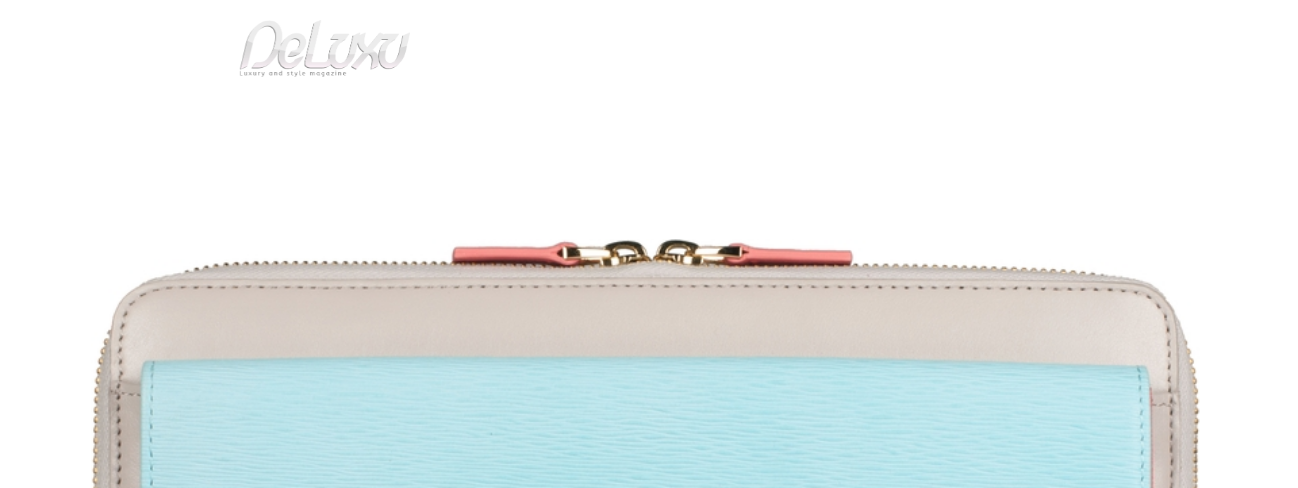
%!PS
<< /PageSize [1298 488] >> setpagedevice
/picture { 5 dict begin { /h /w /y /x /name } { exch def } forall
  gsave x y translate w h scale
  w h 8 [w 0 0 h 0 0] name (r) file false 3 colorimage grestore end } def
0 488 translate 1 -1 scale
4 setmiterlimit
1 setgray
0 0 1298 488 rectfill
(img1.rgb) 239 20 171 57 picture
(img2.rgb) 91 239 1109 249 picture
showpage
